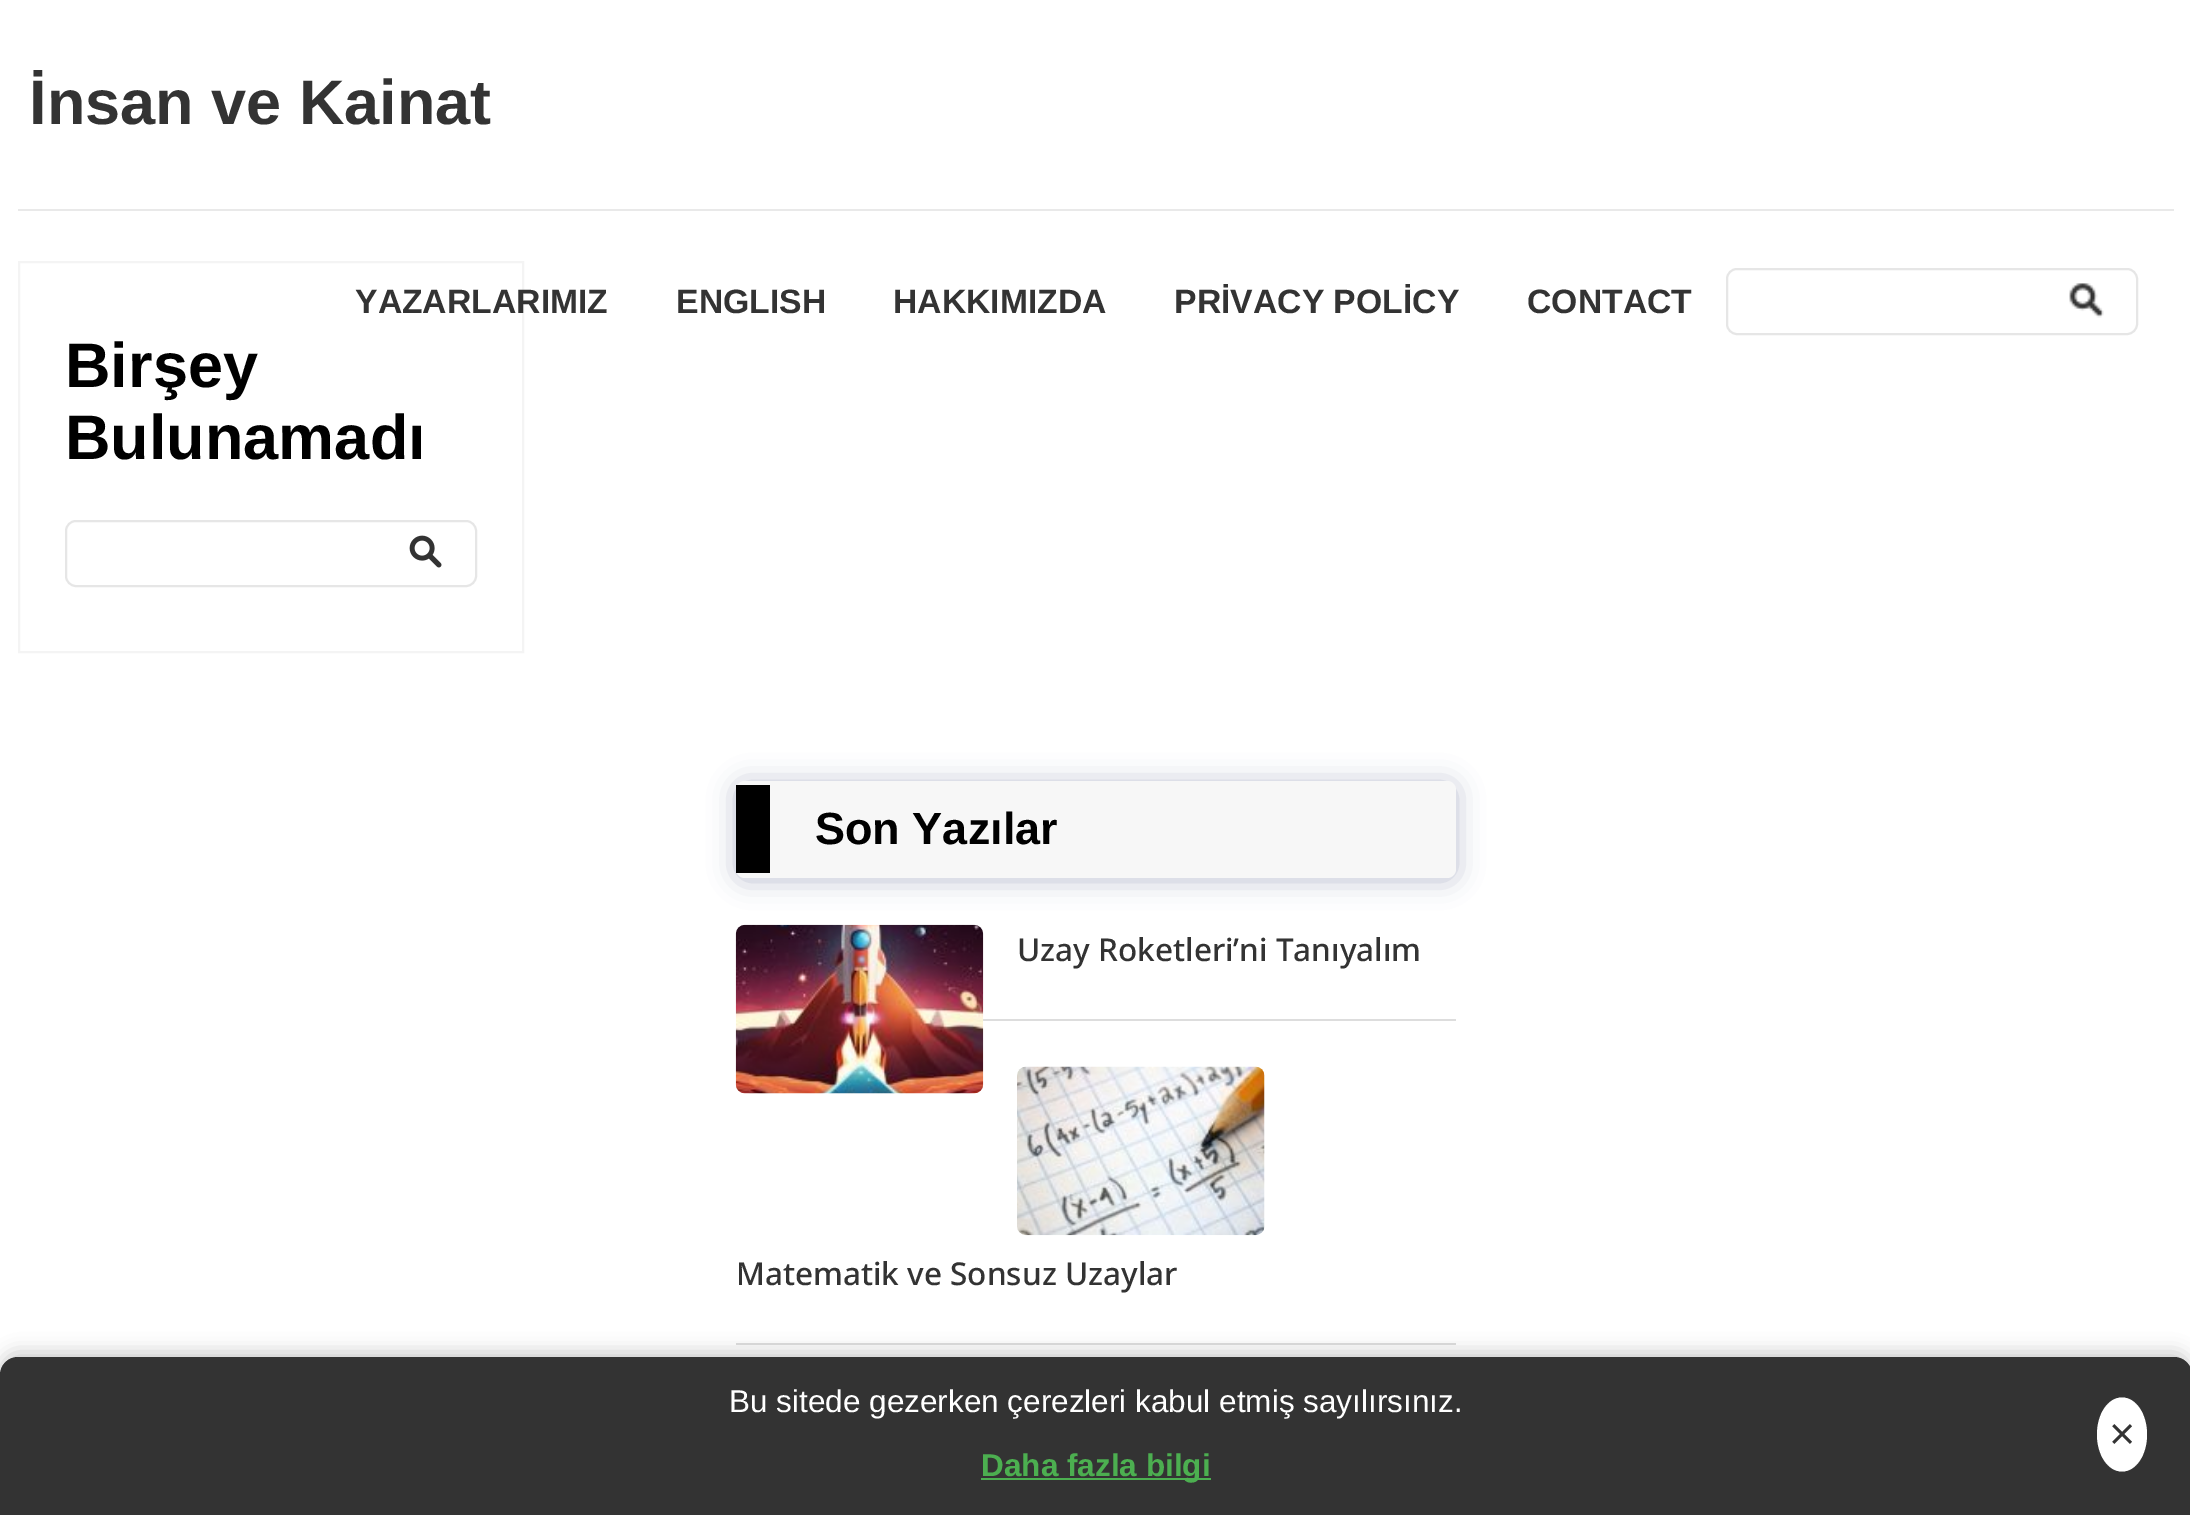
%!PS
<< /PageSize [2190 1515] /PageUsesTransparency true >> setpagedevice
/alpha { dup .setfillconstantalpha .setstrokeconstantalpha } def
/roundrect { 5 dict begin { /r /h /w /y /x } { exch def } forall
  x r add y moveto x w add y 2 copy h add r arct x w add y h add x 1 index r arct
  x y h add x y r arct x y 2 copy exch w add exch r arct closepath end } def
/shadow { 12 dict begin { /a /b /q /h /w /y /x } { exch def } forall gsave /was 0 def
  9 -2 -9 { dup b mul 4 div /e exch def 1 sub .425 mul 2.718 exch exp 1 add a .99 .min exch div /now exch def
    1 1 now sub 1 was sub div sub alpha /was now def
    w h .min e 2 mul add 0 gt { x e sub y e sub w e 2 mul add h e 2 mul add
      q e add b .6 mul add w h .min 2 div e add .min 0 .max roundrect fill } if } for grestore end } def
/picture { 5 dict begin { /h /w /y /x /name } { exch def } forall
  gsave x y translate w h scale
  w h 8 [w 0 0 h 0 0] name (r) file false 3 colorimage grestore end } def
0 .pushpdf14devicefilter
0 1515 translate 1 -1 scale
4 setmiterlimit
1 setgray
0 0 2190 1515 rectfill
0.914 setgray
18 209 2156 2 rectfill
/LiberationSans-Bold [63 0 0 -63 0 0] selectfont
0.2 setgray
29 124 moveto (İnsan ve Kainat) show
0.957 setgray
2 setlinewidth
19 262 504 390 rectstroke
/LiberationSans-Bold [33.75 0 0 -33.75 0 0] selectfont
0.2 setgray
355 313 moveto (YAZARLARIMIZ) show
676 313 moveto (ENGLISH) show
893 313 moveto (HAKKIMIZDA) show
1174 313 moveto (PRİVACY POLİCY) show
1527 313 moveto (CONTACT) show
0.902 setgray
1727 269 410 65 10 roundrect stroke
(img1.rgb) 2069 283 35 35 picture
/LiberationSans-Bold [63 0 0 -63 0 0] selectfont
0 setgray
65 387 moveto (Birşey) show
65 459 moveto (Bulunamadı) show
0.902 setgray
66 521 410 65 10 roundrect stroke
(img2.rgb) 409 535 33 33 picture
0.09 0.169 0.388 setrgbcolor
736 783 720 97 9 13.5 0.3 shadow
0.969 setgray
736 781 720 97 9 roundrect fill
0 setgray
736 785 34 88 rectfill
/LiberationSans-Bold [45 0 0 -45 0 0] selectfont
815 844 moveto (Son Yazılar) show
0.867 setgray
983 1019 473 2 rectfill
(img3.rgb) 735 924 249 170 picture
/NotoSans-Medium [31.5 0 0 -31.5 0 0] selectfont
0.2 setgray
1017 961 moveto (Uzay Roketleri’ni Tanıyalım) show
0.867 setgray
736 1343 720 2 rectfill
(img4.rgb) 1017 1066 248 170 picture
0.2 setgray
736 1285 moveto (Matematik ve Sonsuz Uzaylar) show
0 setgray
0 1352 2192 160 18 9 0.2 shadow
0.2 setgray
newpath 18 1357 moveto 2174 1357 lineto 2184 1357 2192 1365 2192 1375 curveto 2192 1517 lineto 0 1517 lineto 0 1375 lineto 0 1365 8 1357 18 1357 curveto closepath fill
/LiberationSans-Regular [31.5 0 0 -31.5 0 0] selectfont
1 setgray
729 1412 moveto (Bu sitede gezerken çerezleri kabul etmiş sayılırsınız.) show
newpath 2122 1397.5 moveto 2136 1397.5 2147 1414 2147 1434.5 curveto 2147 1455 2136 1471.5 2122 1471.5 curveto 2108 1471.5 2097 1455 2097 1434.5 curveto 2097 1414 2108 1397.5 2122 1397.5 curveto closepath fill
/LiberationSans-Regular [45 0 0 -45 0 0] selectfont
0.2 setgray
2109 1449 moveto (×) show
0.298 0.686 0.314 setrgbcolor
981 1478 230 2 rectfill
/LiberationSans-Bold [31.5 0 0 -31.5 0 0] selectfont
981 1476 moveto (Daha fazla bilgi) show
.poppdf14devicefilter showpage
